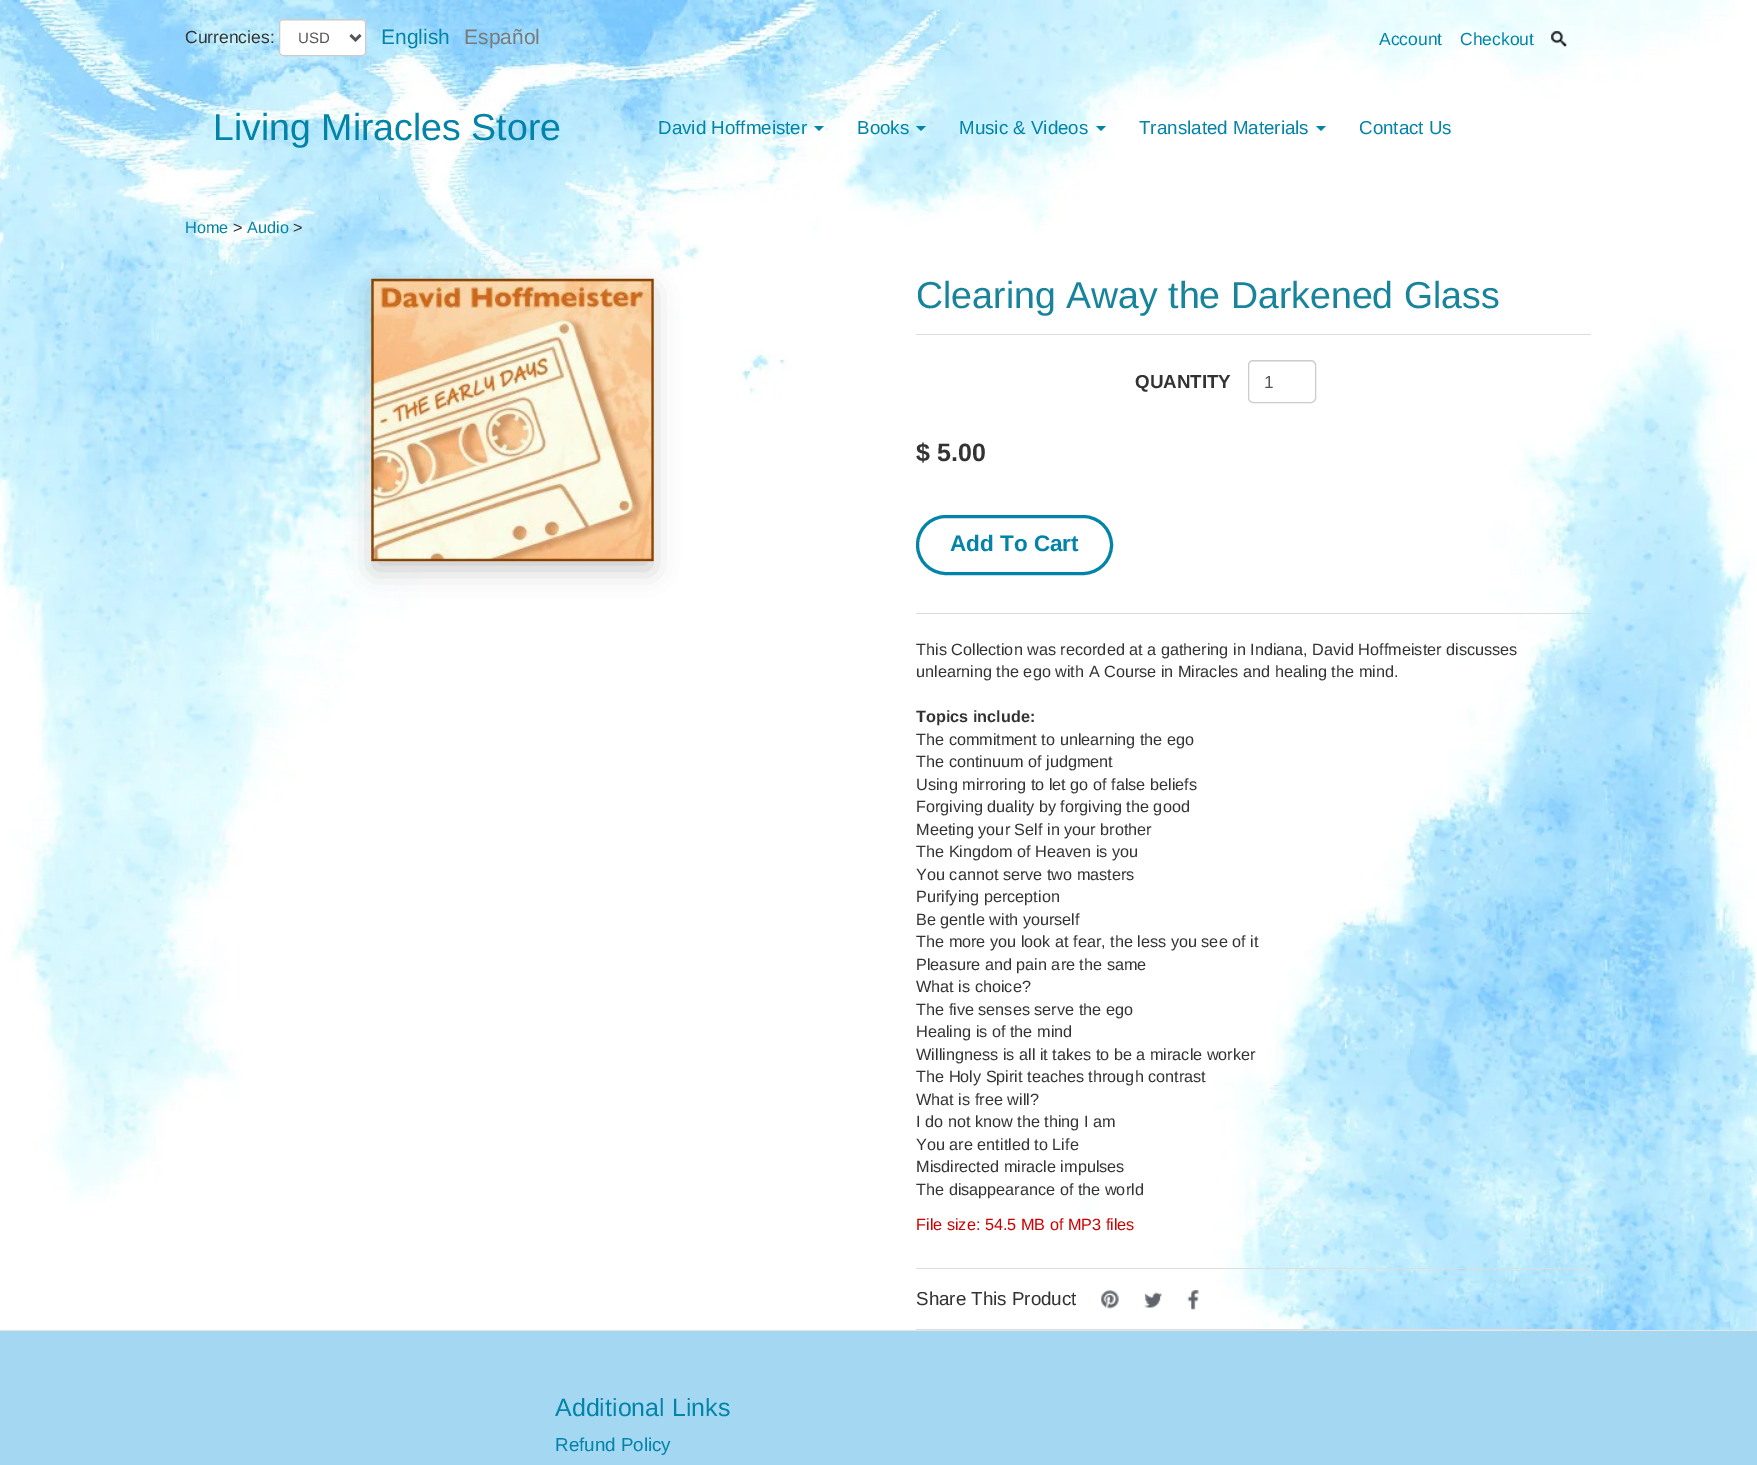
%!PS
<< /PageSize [1757 1465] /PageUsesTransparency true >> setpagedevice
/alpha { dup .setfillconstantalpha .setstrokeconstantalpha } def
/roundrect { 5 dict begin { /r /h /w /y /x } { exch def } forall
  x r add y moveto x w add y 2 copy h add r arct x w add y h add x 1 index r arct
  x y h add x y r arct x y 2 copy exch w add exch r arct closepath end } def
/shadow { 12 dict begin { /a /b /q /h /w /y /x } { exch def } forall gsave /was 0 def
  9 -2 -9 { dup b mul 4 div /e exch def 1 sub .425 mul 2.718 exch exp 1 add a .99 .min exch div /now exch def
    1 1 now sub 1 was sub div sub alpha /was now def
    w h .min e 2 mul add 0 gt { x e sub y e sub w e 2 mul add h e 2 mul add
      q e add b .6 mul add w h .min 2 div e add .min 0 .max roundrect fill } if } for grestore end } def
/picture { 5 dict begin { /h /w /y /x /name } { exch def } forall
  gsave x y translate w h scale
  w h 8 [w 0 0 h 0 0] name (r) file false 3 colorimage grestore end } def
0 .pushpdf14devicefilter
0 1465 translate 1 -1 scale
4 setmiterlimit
1 setgray
0 0 1757 1465 rectfill
(img1.rgb) 0 0 1757 1330 picture
/LiberationSans-Regular [17.5 0 0 -17.5 0 0] selectfont
0.2 setgray
185 43 moveto (Currencies:) show
1 setgray
279 19 87 37 4 roundrect fill
0.925 setgray
newpath 282 21 moveto 362 21 lineto 364 21 365 22 365 24 curveto 365 16 355 20 349 20 curveto 296 20 lineto 290 20 280 16 280 24 curveto 280 22 281 21 282 21 curveto closepath fill
0.8 setgray
279.5 19.5 86 36 3.5 roundrect stroke
0.333 setgray
2.5 setlinewidth
newpath 350.5 35 moveto 355.5 40 lineto 360.5 35 lineto stroke
/LiberationSans-Regular [15 0 0 -15 0 0] selectfont
298 43 moveto (USD) show
/LiberationSans-Regular [21 0 0 -21 0 0] selectfont
0.008 0.514 0.659 setrgbcolor
381 44 moveto (English) show
0.475 setgray
464 44 moveto (Español) show
/LiberationSans-Regular [17.5 0 0 -17.5 0 0] selectfont
0.008 0.514 0.659 setrgbcolor
1379 45 moveto (Account) show
1460 45 moveto (Checkout) show
(img2.rgb) 1551 31 16 16 picture
/LiberationSans-Regular [37.5 0 0 -37.5 0 0] selectfont
213 140 moveto (Living Miracles Store) show
/LiberationSans-Regular [18.75 0 0 -18.75 0 0] selectfont
658 134 moveto (David Hoffmeister) show
newpath 814 126 moveto 824 126 lineto 819 131 lineto closepath fill
857 134 moveto (Books) show
newpath 916 126 moveto 926 126 lineto 921 131 lineto closepath fill
959 134 moveto (Music & Videos) show
newpath 1096 126 moveto 1106 126 lineto 1101 131 lineto closepath fill
1139 134 moveto (Translated Materials) show
newpath 1316 126 moveto 1326 126 lineto 1321 131 lineto closepath fill
1359 134 moveto (Contact Us) show
/LiberationSans-Regular [16.25 0 0 -16.25 0 0] selectfont
185 233 moveto (Home) show
0.2 setgray
233 233 moveto (>) show
0.008 0.514 0.659 setrgbcolor
247 233 moveto (Audio) show
0.2 setgray
293 233 moveto (>) show
0 setgray
374 291 277 278 0 13 0.22 shadow
(img3.rgb) 371 278 283 284 picture
0.867 setgray
916 334 675 1 rectfill
/LiberationSans-Regular [37.5 0 0 -37.5 0 0] selectfont
0.09 0.518 0.612 setrgbcolor
916 308 moveto (Clearing Away the Darkened Glass) show
/LiberationSans-Bold [18.75 0 0 -18.75 0 0] selectfont
0.2 setgray
1135 388 moveto (QUANTITY) show
0.925 setgray
newpath 1252 362 moveto 1311 362 lineto 1313 362 1315 364 1315 366 curveto 1315 359 1306 361 1301 361 curveto 1263 361 lineto 1258 361 1249 359 1249 366 curveto 1249 364 1250 362 1252 362 curveto closepath fill
0.8 setgray
1 setlinewidth
1248.5 360.5 67 42 4.5 roundrect stroke
/LiberationSans-Regular [17.5 0 0 -17.5 0 0] selectfont
0.333 setgray
1264 388 moveto (1) show
0.867 setgray
916 613 675 1 rectfill
/LiberationSans-Bold [25 0 0 -25 0 0] selectfont
0.2 setgray
916 461 moveto ($ 5.00) show
0.008 0.514 0.659 setrgbcolor
3 setlinewidth
917.5 516.5 194 57 28.5 roundrect stroke
/LiberationSans-Bold [22.5 0 0 -22.5 0 0] selectfont
950 551 moveto (Add To Cart) show
0.867 setgray
916 1268 675 1 rectfill
/LiberationSans-Regular [16.25 0 0 -16.25 0 0] selectfont
0.2 setgray
916 655 moveto (This Collection was recorded at a gathering in Indiana, David Hoffmeister discusses) show
916 677 moveto (unlearning the ego with A Course in Miracles and healing the mind.) show
/LiberationSans-Bold [16.25 0 0 -16.25 0 0] selectfont
916 722 moveto (Topics include:) show
/LiberationSans-Regular [16.25 0 0 -16.25 0 0] selectfont
916 745 moveto (The commitment to unlearning the ego) show
916 767 moveto (The continuum of judgment) show
916 790 moveto (Using mirroring to let go of false beliefs) show
916 812 moveto (Forgiving duality by forgiving the good) show
916 835 moveto (Meeting your Self in your brother) show
916 857 moveto (The Kingdom of Heaven is you) show
916 880 moveto (You cannot serve two masters) show
916 902 moveto (Purifying perception) show
916 925 moveto (Be gentle with yourself) show
916 947 moveto (The more you look at fear, the less you see of it) show
916 970 moveto (Pleasure and pain are the same) show
916 992 moveto (What is choice?) show
916 1015 moveto (The five senses serve the ego) show
916 1037 moveto (Healing is of the mind) show
916 1060 moveto (Willingness is all it takes to be a miracle worker) show
916 1082 moveto (The Holy Spirit teaches through contrast) show
916 1105 moveto (What is free will?) show
916 1127 moveto (I do not know the thing I am) show
916 1150 moveto (You are entitled to Life) show
916 1172 moveto (Misdirected miracle impulses) show
916 1195 moveto (The disappearance of the world) show
0.8 0 0 setrgbcolor
916 1230 moveto (File size: 54.5 MB of MP3 files) show
0.867 setgray
916 1329 675 1 rectfill
/LiberationSans-Regular [18.75 0 0 -18.75 0 0] selectfont
0.2 setgray
916 1305 moveto (Share This Product) show
(img4.rgb) 1101 1290 18 19 picture
(img5.rgb) 1143 1292 20 16 picture
(img6.rgb) 1187 1290 12 20 picture
0.643 0.843 0.945 setrgbcolor
0 1331 1757 134 rectfill
0.898 setgray
0 1330 1757 1 rectfill
/LiberationSans-Regular [25 0 0 -25 0 0] selectfont
0.008 0.514 0.659 setrgbcolor
555 1416 moveto (Additional Links) show
/LiberationSans-Regular [18.75 0 0 -18.75 0 0] selectfont
555 1451 moveto (Refund Policy) show
.poppdf14devicefilter showpage
